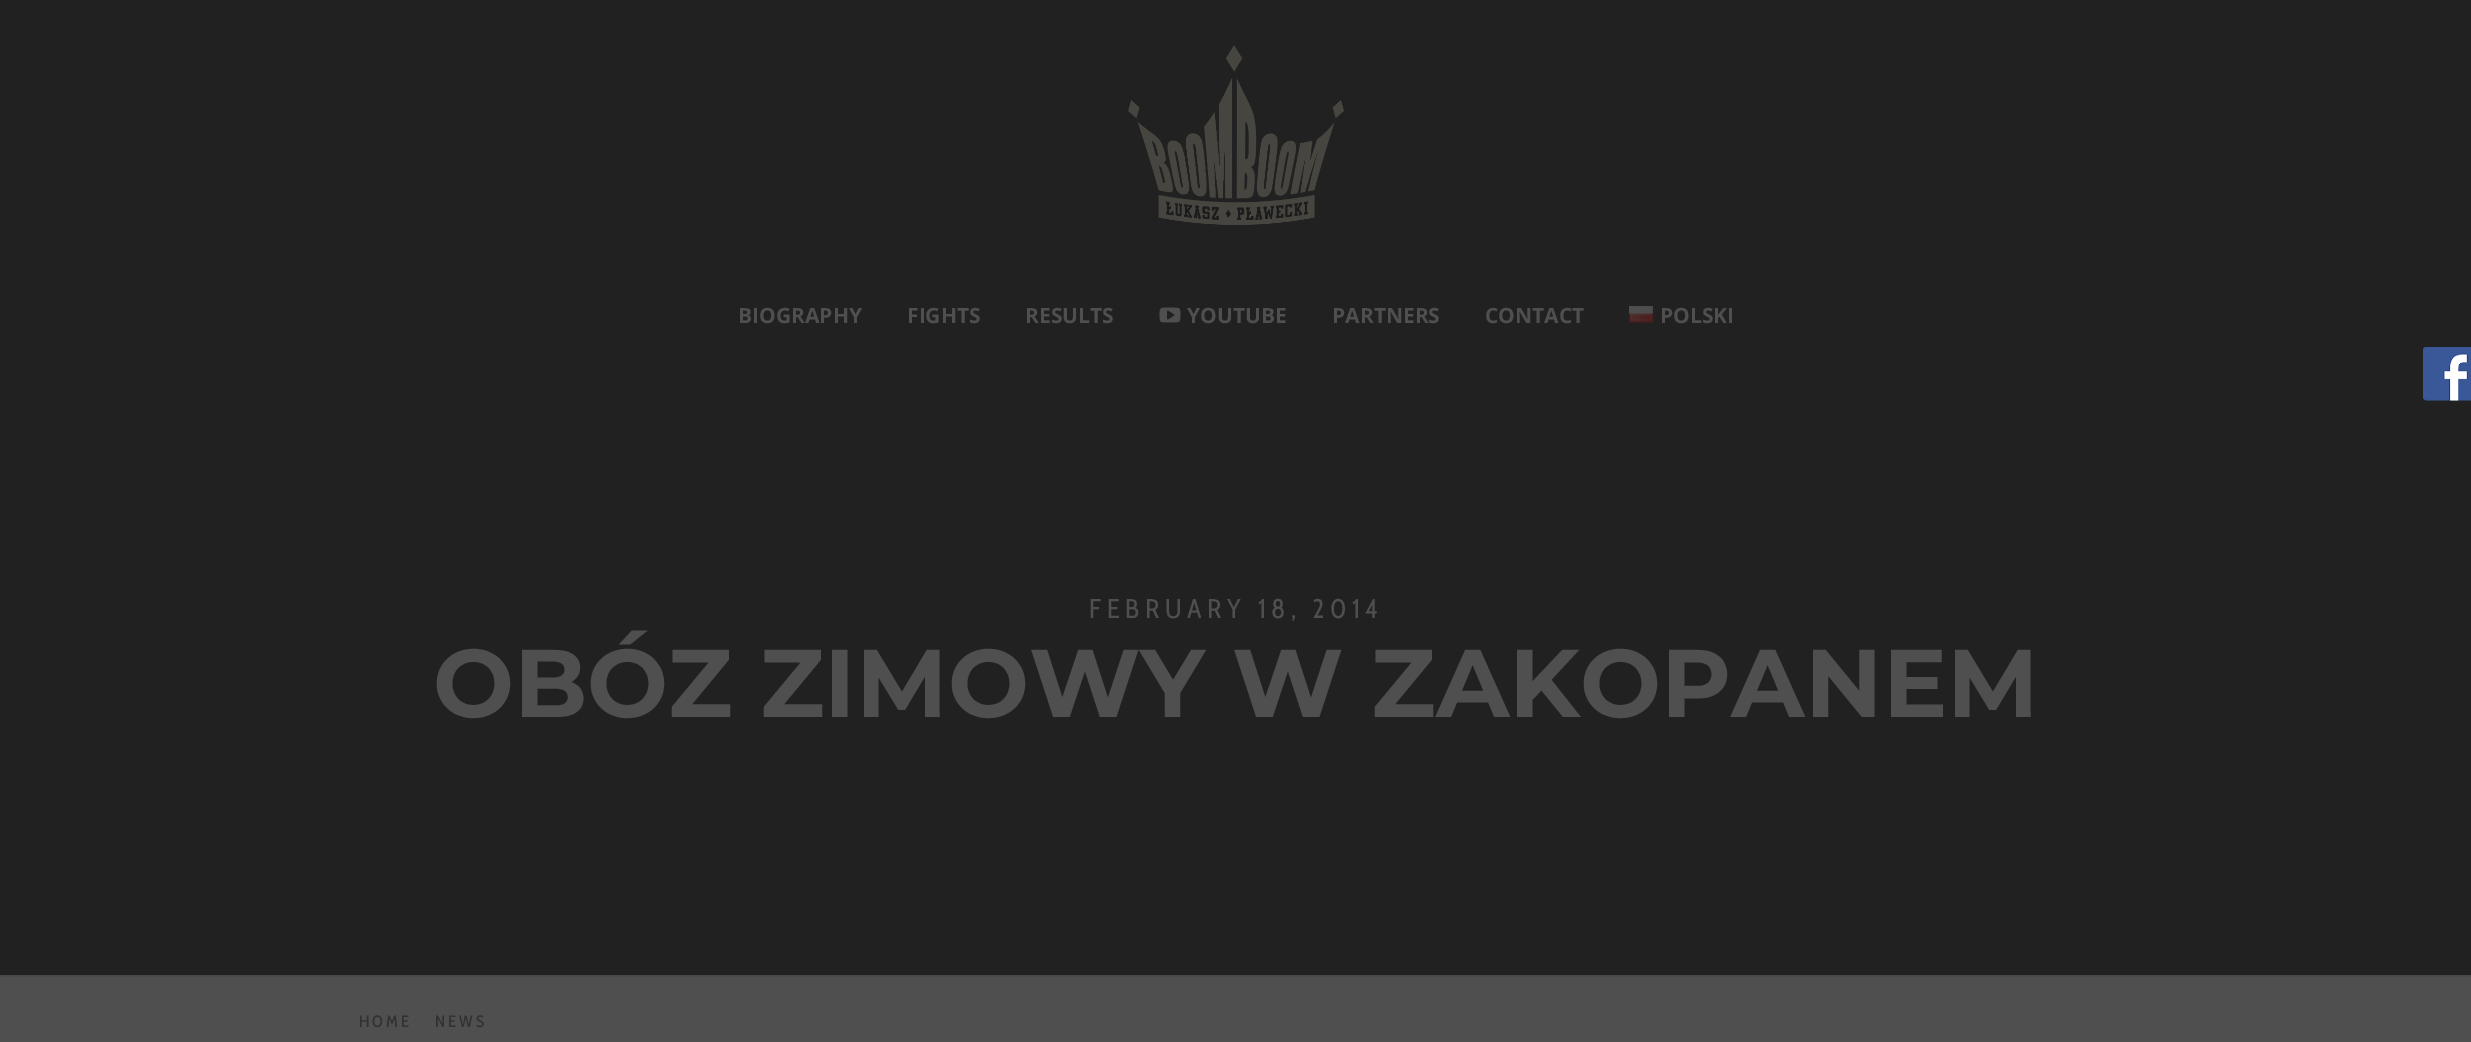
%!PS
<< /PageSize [2471 1042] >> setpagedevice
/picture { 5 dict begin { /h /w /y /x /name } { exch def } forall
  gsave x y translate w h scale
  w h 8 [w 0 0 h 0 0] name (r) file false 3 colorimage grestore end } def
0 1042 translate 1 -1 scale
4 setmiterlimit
0.129 setgray
0 0 2471 1042 rectfill
(img1.rgb) 1128 45 216 180 picture
/OpenSans-Bold [21 0 0 -21 0 0] selectfont
0.31 setgray
738 323 moveto (BIOGRAPHY) show
907 323 moveto (FIGHTS) show
1025 323 moveto (RESULTS) show
(img2.rgb) 1159 307 22 16 picture
1187 323 moveto (YOUTUBE) show
1332 323 moveto (PARTNERS) show
1485 323 moveto (CONTACT) show
(img3.rgb) 1629 306 24 17 picture
1660 323 moveto (POLSKI) show
/CabinCondensed-Regular [27 0 0 -27 0 0] selectfont
1089 618 moveto 5.5 0 (FEBRUARY 18, 2014) ashow
/Montserrat-Thin [96 0 0 -96 0 0] selectfont
433 717 moveto (OBÓZ ZIMOWY W ZAKOPANEM) show
0 977 2471 65 rectfill
0.286 setgray
0 975 2471 2 rectfill
/CabinCondensed-Medium [16.5 0 0 -16.5 0 0] selectfont
0.196 setgray
359 1027 moveto 3 0 (HOME) ashow
435 1027 moveto 3 0 (NEWS) ashow
(img4.rgb) 2423 347 48 54 picture
showpage
